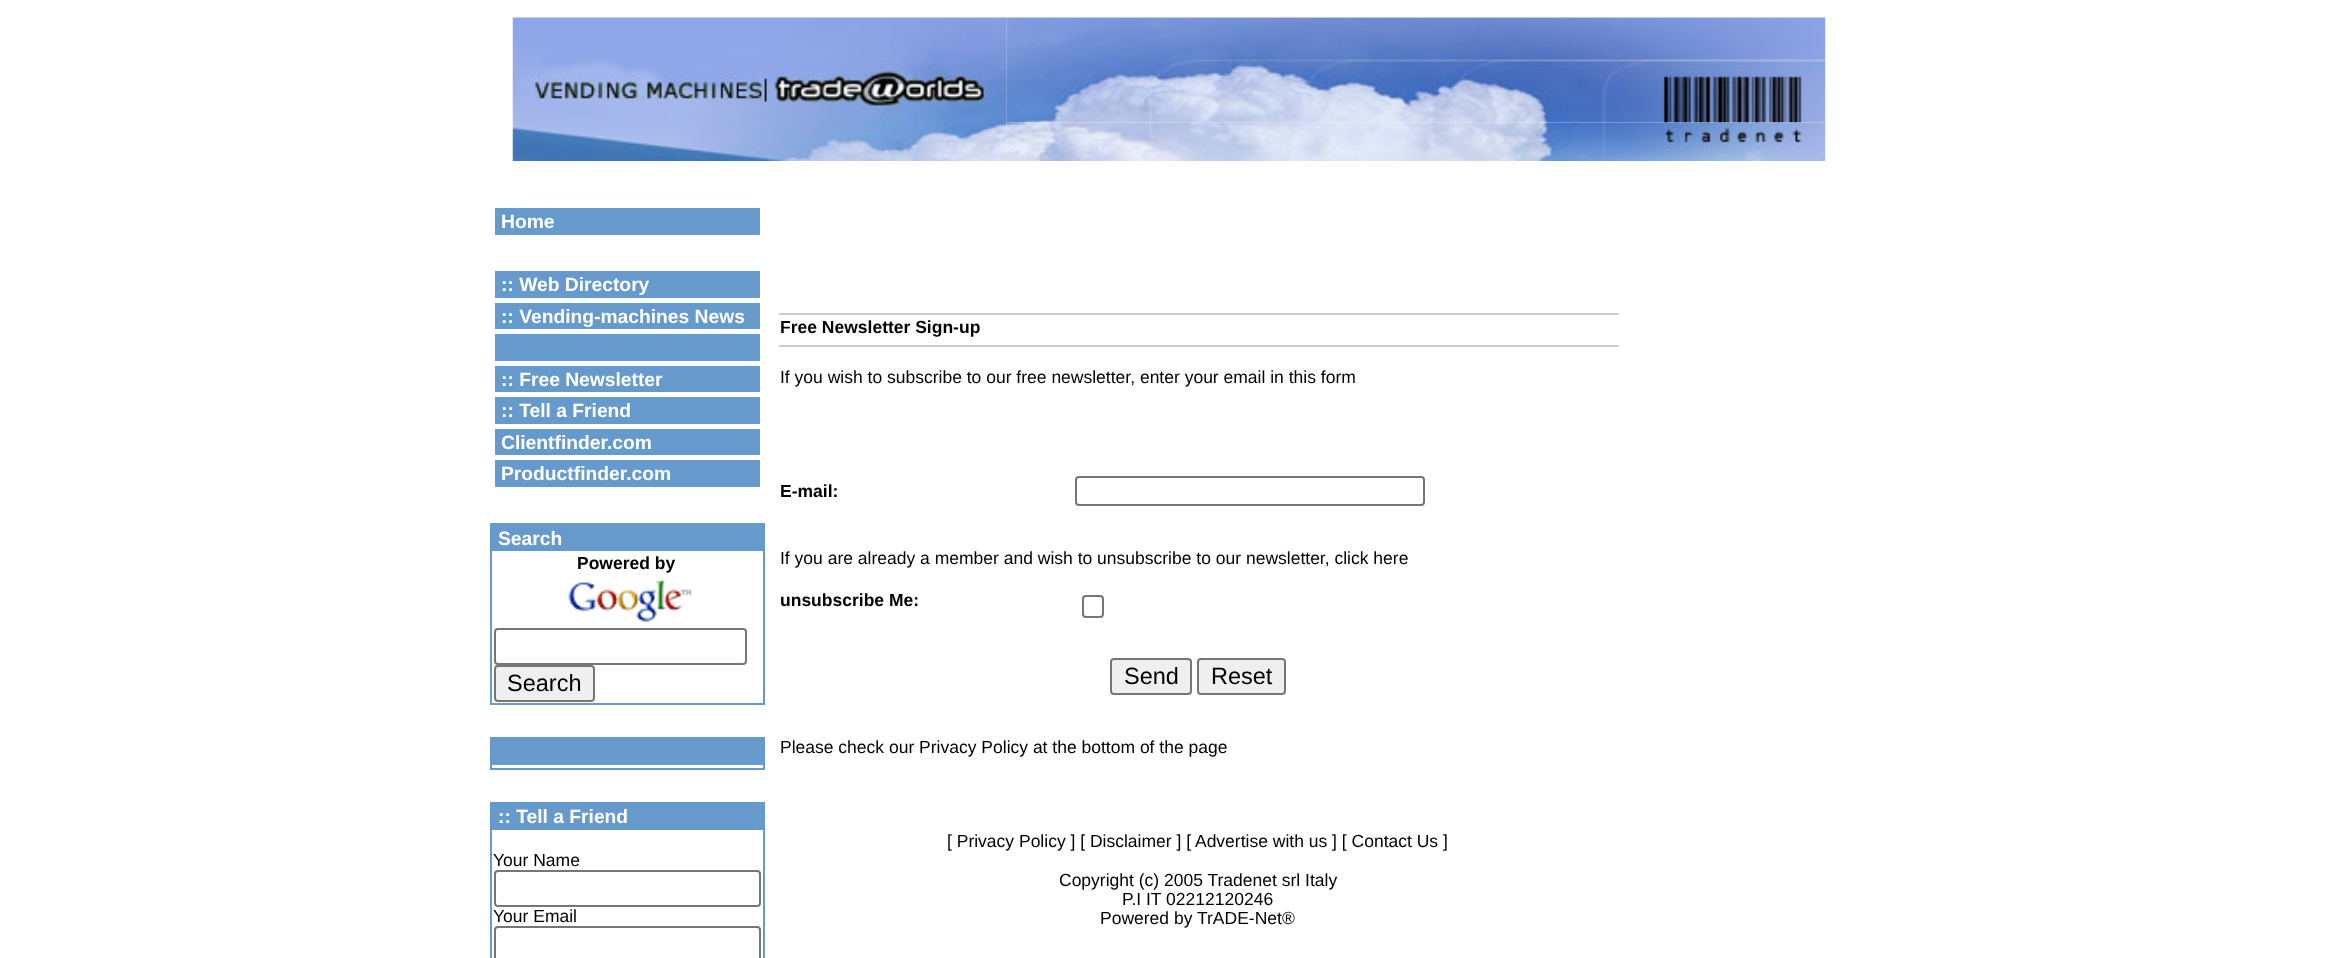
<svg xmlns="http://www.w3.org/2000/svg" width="2338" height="958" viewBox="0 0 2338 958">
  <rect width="100%" height="100%" fill="#fff"/>
  <image x="512" y="17" width="495" height="144" href="img/1.png"/>
  <image x="1006" y="17" width="820" height="106" href="img/2.png"/>
  <image x="1006" y="122" width="820" height="39" href="img/3.png"/>
  <path d="M495 208h265v27H495z" fill="#69c"/>
  <path d="M495 271h265v27H495z" fill="#69c"/>
  <path d="M495 303h265v26H495z" fill="#69c"/>
  <path d="M495 334h265v27H495z" fill="#69c"/>
  <path d="M495 366h265v26H495z" fill="#69c"/>
  <path d="M495 397h265v27H495z" fill="#69c"/>
  <path d="M495 429h265v26H495z" fill="#69c"/>
  <path d="M495 460h265v27H495z" fill="#69c"/>
  <path d="M491 524h273v180H491z" fill="none" stroke="#69c" stroke-width="2"/>
  <path d="M492 525h271v26H492z" fill="#69c"/>
  <image x="568" y="580" width="124" height="42" href="img/4.png"/>
  <rect x="495" y="629" width="251" height="35" rx="3" fill="none" stroke="#767676" stroke-width="2"/>
  <rect x="495" y="666" width="99" height="35" rx="3" fill="#efefef" stroke="#767676" stroke-width="2"/>
  <path d="M491 738h273v31H491z" fill="none" stroke="#69c" stroke-width="2"/>
  <path d="M492 739h271v26H492z" fill="#69c"/>
  <path d="M491 803h273v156H491z" fill="none" stroke="#69c" stroke-width="2"/>
  <path d="M492 804h271v26H492z" fill="#69c"/>
  <rect x="495" y="871" width="265" height="35" rx="3" fill="none" stroke="#767676" stroke-width="2"/>
  <rect x="495" y="927" width="265" height="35" rx="3" fill="none" stroke="#767676" stroke-width="2"/>
  <path d="M779 313h840v2H779z" fill="#ccc"/>
  <path d="M779 345h840v2H779z" fill="#ccc"/>
  <rect x="1076" y="477" width="348" height="28" rx="3" fill="none" stroke="#767676" stroke-width="2"/>
  <rect x="1083" y="596" width="20" height="21" rx="3" fill="none" stroke="#767676" stroke-width="2"/>
  <rect x="1111" y="659" width="80" height="35" rx="3" fill="#efefef" stroke="#767676" stroke-width="2"/>
  <rect x="1198" y="659" width="87" height="35" rx="3" fill="#efefef" stroke="#767676" stroke-width="2"/>
  <g font-family="Liberation Sans" font-size="19.25" font-weight="bold" fill="#fff">
    <text x="501" y="228">Home</text>
    <text x="501" y="291">:: Web Directory</text>
    <text x="501" y="323">:: Vending-machines News</text>
    <text x="501" y="386">:: Free Newsletter</text>
    <text x="501" y="417">:: Tell a Friend</text>
    <text x="501" y="449">Clientfinder.com</text>
    <text x="501" y="480">Productfinder.com</text>
    <text x="498" y="545">Search</text>
  </g>
  <text x="577" y="569" font-family="Liberation Sans" font-size="17.5" font-weight="bold" fill="#000">Powered by</text>
  <text x="507" y="691" font-family="Liberation Sans" font-size="23.5" fill="#000">Search</text>
  <text x="498" y="823" font-family="Liberation Sans" font-size="19.25" font-weight="bold" fill="#fff">:: Tell a Friend</text>
  <g font-family="Liberation Sans" font-size="17.5" fill="#000">
    <text x="493" y="866">Your Name</text>
    <text x="493" y="922">Your Email</text>
  </g>
  <text x="780" y="333" font-family="Liberation Sans" font-size="17.5" font-weight="bold" fill="#000">Free Newsletter Sign-up</text>
  <text x="780" y="383" font-family="Liberation Sans" font-size="17.5" fill="#000">If you wish to subscribe to our free newsletter, enter your email in this form</text>
  <text x="780" y="497" font-family="Liberation Sans" font-size="17.5" font-weight="bold" fill="#000">E-mail:</text>
  <text x="780" y="564" font-family="Liberation Sans" font-size="17.5" fill="#000">If you are already a member and wish to unsubscribe to our newsletter, click here</text>
  <text x="780" y="606" font-family="Liberation Sans" font-size="17.5" font-weight="bold" fill="#000">unsubscribe Me:</text>
  <g font-family="Liberation Sans" font-size="23.5" fill="#000">
    <text x="1124" y="684">Send</text>
    <text x="1211" y="684">Reset</text>
  </g>
  <g font-family="Liberation Sans" font-size="17.5" fill="#000">
    <text x="780" y="753">Please check our Privacy Policy at the bottom of the page</text>
    <text x="947" y="847">[ Privacy Policy ] [ Disclaimer ] [ Advertise with us ] [ Contact Us ]</text>
    <text x="1059" y="886">Copyright (c) 2005 Tradenet srl Italy</text>
    <text x="1122" y="905">P.I IT 02212120246</text>
    <text x="1100" y="924">Powered by</text>
    <text x="1197" y="924">TrADE-Net®</text>
  </g>
</svg>
